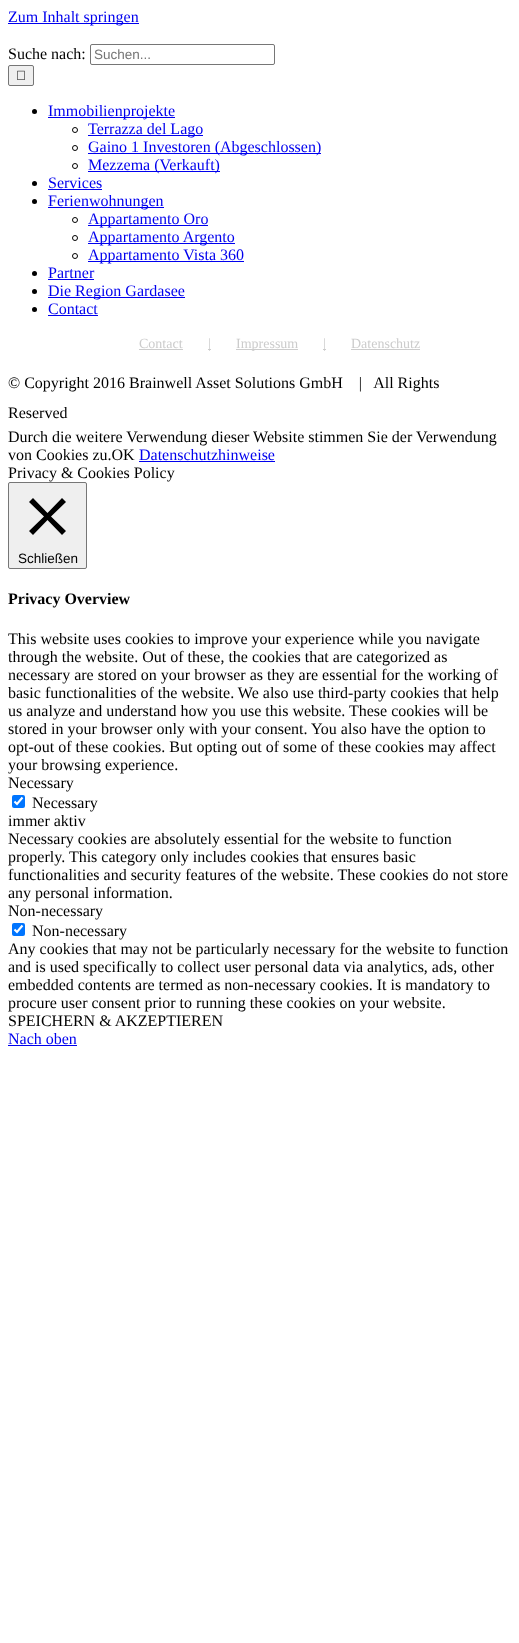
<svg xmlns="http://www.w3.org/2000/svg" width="519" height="1643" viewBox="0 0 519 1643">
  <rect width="100%" height="100%" fill="#fff"/>
  <path d="M8 23h131v1H8z" fill="#00e"/>
  <rect x="90.5" y="44.5" width="184" height="20" rx="1.5" fill="none" stroke="#767676"/>
  <rect x="8.5" y="65.5" width="25" height="20" rx="1.5" fill="#efefef" stroke="#767676"/>
  <image x="17" y="70" width="8" height="10" href="img/1.png"/>
  <circle cx="34.5" cy="111.5" r="2.5" fill="#000"/>
  <path d="M48 117h127v1H48z" fill="#00e"/>
  <circle cx="75" cy="130" r="2.5" fill="none" stroke="#000"/>
  <path d="M88 135h115v1H88z" fill="#00e"/>
  <circle cx="75" cy="148" r="2.5" fill="none" stroke="#000"/>
  <path d="M88 153h233v1H88z" fill="#00e"/>
  <circle cx="75" cy="166" r="2.5" fill="none" stroke="#000"/>
  <path d="M88 171h132v1H88z" fill="#00e"/>
  <circle cx="34.5" cy="183.5" r="2.5" fill="#000"/>
  <path d="M48 189h54v1H48z" fill="#00e"/>
  <circle cx="34.5" cy="201.5" r="2.5" fill="#000"/>
  <path d="M48 207h116v1H48z" fill="#00e"/>
  <circle cx="75" cy="220" r="2.5" fill="none" stroke="#000"/>
  <path d="M88 225h120v1H88z" fill="#00e"/>
  <circle cx="75" cy="238" r="2.5" fill="none" stroke="#000"/>
  <path d="M88 243h147v1H88z" fill="#00e"/>
  <circle cx="75" cy="256" r="2.5" fill="none" stroke="#000"/>
  <path d="M88 261h156v1H88z" fill="#00e"/>
  <circle cx="34.5" cy="273.5" r="2.5" fill="#000"/>
  <path d="M48 279h46v1H48z" fill="#00e"/>
  <circle cx="34.5" cy="291.5" r="2.5" fill="#000"/>
  <path d="M48 297h137v1H48z" fill="#00e"/>
  <circle cx="34.5" cy="309.5" r="2.5" fill="#000"/>
  <path d="M48 315h50v1H48z" fill="#00e"/>
  <path d="M139 349h44v1H139z" fill="#ccc"/>
  <path d="M208 349h3v1H208z" fill="#ccc"/>
  <path d="M236 349h62v1H236z" fill="#ccc"/>
  <path d="M323 349h3v1H323z" fill="#ccc"/>
  <path d="M351 349h69v1H351z" fill="#ccc"/>
  <path d="M139 461h136v1H139z" fill="#00e"/>
  <rect x="8.5" y="482.5" width="78" height="86" rx="1.5" fill="#efefef" stroke="#767676"/>
  <path d="M66 502L62 498L47.5 513L33 498L29 502L44 516.5L29 531L33 535L47.5 520L62 535L66 531L51 516.5Z" fill="#000"/>
  <rect x="12" y="795" width="13" height="13" rx="2" fill="#0075ff"/>
  <path d="M14.5 801.5L17 804L22.5 797.5" fill="none" stroke="#fff" stroke-width="2.1"/>
  <rect x="12" y="923" width="13" height="13" rx="2" fill="#0075ff"/>
  <path d="M14.5 929.5L17 932L22.5 925.5" fill="none" stroke="#fff" stroke-width="2.1"/>
  <path d="M8 1045h69v1H8z" fill="#00e"/>
  <text x="8" y="22" font-family="Liberation Serif" font-size="16" fill="#00e">Zum Inhalt springen</text>
  <text x="8" y="59" font-family="Liberation Serif" font-size="16" fill="#000">Suche nach:</text>
  <text x="94" y="59" font-family="Liberation Sans" font-size="13.5" fill="#757575">Suchen...</text>
  <g font-family="Liberation Serif" font-size="16" fill="#00e">
    <text x="48" y="116">Immobilienprojekte</text>
    <text x="88" y="134">Terrazza del Lago</text>
    <text x="88" y="152">Gaino 1 Investoren (Abgeschlossen)</text>
    <text x="88" y="170">Mezzema (Verkauft)</text>
    <text x="48" y="188">Services</text>
    <text x="48" y="206">Ferienwohnungen</text>
    <text x="88" y="224">Appartamento Oro</text>
    <text x="88" y="242">Appartamento Argento</text>
    <text x="88" y="260">Appartamento Vista 360</text>
    <text x="48" y="278">Partner</text>
    <text x="48" y="296">Die Region Gardasee</text>
    <text x="48" y="314">Contact</text>
  </g>
  <g font-family="Liberation Serif" font-size="14" fill="#ccc">
    <text x="139" y="348">Contact</text>
    <text x="208" y="348">|</text>
    <text x="236" y="348">Impressum</text>
    <text x="323" y="348">|</text>
    <text x="351" y="348">Datenschutz</text>
  </g>
  <g font-family="Liberation Serif" font-size="16" fill="#000">
    <text x="8" y="388" xml:space="preserve">© Copyright 2016 Brainwell Asset Solutions GmbH    |   All Rights</text>
    <text x="8" y="418">Reserved</text>
    <text x="8" y="442">Durch die weitere Verwendung dieser Website stimmen Sie der Verwendung</text>
    <text x="8" y="460">von Cookies zu.OK</text>
  </g>
  <text x="139" y="460" font-family="Liberation Serif" font-size="16" fill="#00e">Datenschutzhinweise</text>
  <text x="8" y="478" font-family="Liberation Serif" font-size="16" fill="#000">Privacy &amp; Cookies Policy</text>
  <text x="18" y="563" font-family="Liberation Sans" font-size="13.5" fill="#000">Schließen</text>
  <text x="8" y="604" font-family="Liberation Serif" font-size="16" font-weight="bold" fill="#000">Privacy Overview</text>
  <g font-family="Liberation Serif" font-size="16" fill="#000">
    <text x="8" y="644">This website uses cookies to improve your experience while you navigate</text>
    <text x="8" y="662">through the website. Out of these, the cookies that are categorized as</text>
    <text x="8" y="680">necessary are stored on your browser as they are essential for the working of</text>
    <text x="8" y="698">basic functionalities of the website. We also use third-party cookies that help</text>
    <text x="8" y="716">us analyze and understand how you use this website. These cookies will be</text>
    <text x="8" y="734">stored in your browser only with your consent. You also have the option to</text>
    <text x="8" y="752">opt-out of these cookies. But opting out of some of these cookies may affect</text>
    <text x="8" y="770">your browsing experience.</text>
    <text x="8" y="788">Necessary</text>
    <text x="32" y="808">Necessary</text>
    <text x="8" y="826">immer aktiv</text>
    <text x="8" y="844">Necessary cookies are absolutely essential for the website to function</text>
    <text x="8" y="862">properly. This category only includes cookies that ensures basic</text>
    <text x="8" y="880">functionalities and security features of the website. These cookies do not store</text>
    <text x="8" y="898">any personal information.</text>
    <text x="8" y="916">Non-necessary</text>
    <text x="32" y="936">Non-necessary</text>
    <text x="8" y="954">Any cookies that may not be particularly necessary for the website to function</text>
    <text x="8" y="972">and is used specifically to collect user personal data via analytics, ads, other</text>
    <text x="8" y="990">embedded contents are termed as non-necessary cookies. It is mandatory to</text>
    <text x="8" y="1008">procure user consent prior to running these cookies on your website.</text>
    <text x="8" y="1026">SPEICHERN &amp; AKZEPTIEREN</text>
  </g>
  <text x="8" y="1044" font-family="Liberation Serif" font-size="16" fill="#00e">Nach oben</text>
</svg>
